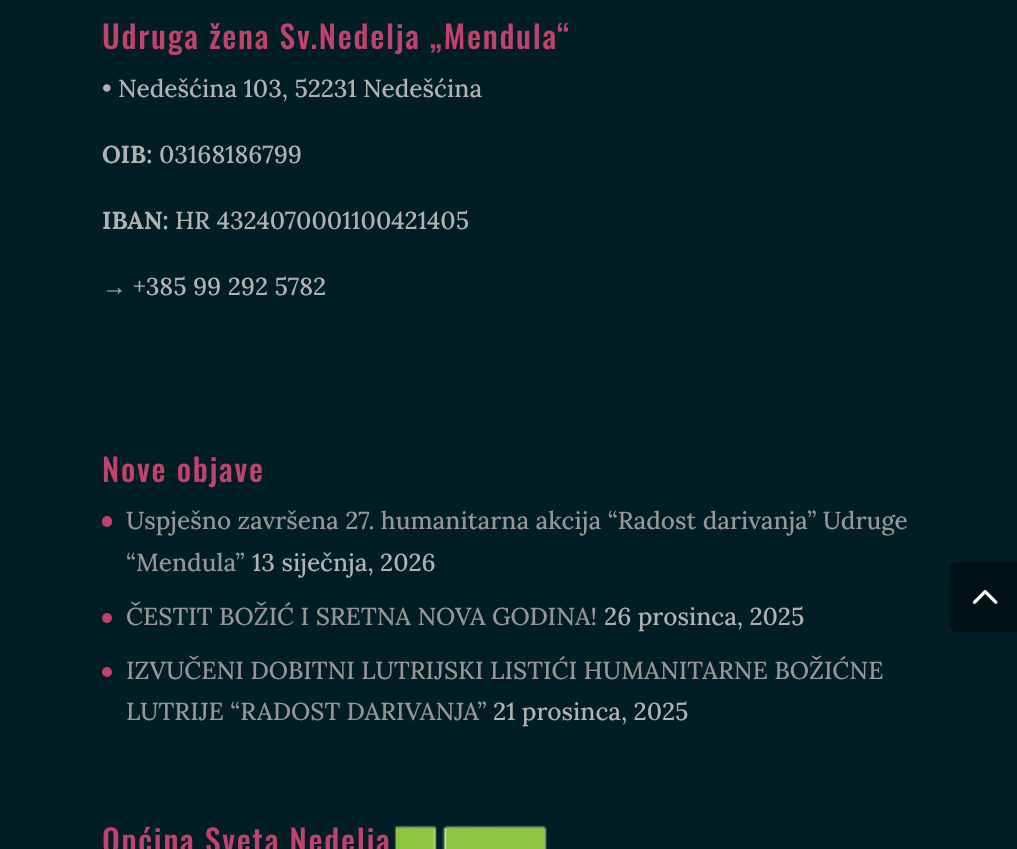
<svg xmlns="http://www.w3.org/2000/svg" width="1017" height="849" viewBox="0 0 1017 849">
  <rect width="100%" height="100%" fill="#001e23"/>
  <rect x="102" y="516" width="10" height="11" rx="5" fill="#c1436d"/>
  <circle cx="107" cy="618" r="5" fill="#c1436d"/>
  <circle cx="107" cy="672" r="5" fill="#c1436d"/>
  <image x="393" y="825" width="154" height="24" href="img/1.png"/>
  <path d="M958 562H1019V632H958C953 632 949 628 949 623V571C949 566 953 562 958 562Z" fill="#001215"/>
  <image x="972" y="590" width="26" height="14" href="img/2.png"/>
  <text x="102" y="49" font-family="Oswald" font-size="31.5" font-weight="500" letter-spacing="1.75" fill="#c1436d">Udruga žena Sv.Nedelja „Mendula“</text>
  <text x="102" y="97" font-family="Lora" font-size="24.5" font-weight="500" fill="#b2b2b2">• Nedešćina 103, 52231 Nedešćina</text>
  <text x="102" y="163" font-family="Lora" font-size="24.5" font-weight="bold" fill="#b2b2b2">OIB:</text>
  <text x="159" y="163" font-family="Lora" font-size="24.5" font-weight="500" fill="#b2b2b2">03168186799</text>
  <text x="102" y="229" font-family="Lora" font-size="24.5" font-weight="bold" fill="#b2b2b2">IBAN:</text>
  <text x="175" y="229" font-family="Lora" font-size="24.5" font-weight="500" fill="#b2b2b2">HR 4324070001100421405</text>
  <text x="102" y="295" font-family="Liberation Serif" font-size="24.5" fill="#b2b2b2">→</text>
  <text x="133" y="295" font-family="Lora" font-size="24.5" font-weight="500" fill="#b2b2b2">+385 99 292 5782</text>
  <text x="102" y="482" font-family="Oswald" font-size="31.5" font-weight="500" letter-spacing="1.75" fill="#c1436d">Nove objave</text>
  <g font-family="Lora" font-size="24.5" font-weight="500" fill="#969696">
    <text x="126" y="529">Uspješno završena 27. humanitarna akcija “Radost darivanja” Udruge</text>
    <text x="126" y="571">“Mendula”</text>
  </g>
  <text x="252" y="571" font-family="Lora" font-size="24.5" font-weight="500" fill="#b2b2b2">13 siječnja, 2026</text>
  <text x="126" y="625" font-family="Lora" font-size="24.5" font-weight="500" fill="#969696">ČESTIT BOŽIĆ I SRETNA NOVA GODINA!</text>
  <text x="604" y="625" font-family="Lora" font-size="24.5" font-weight="500" fill="#b2b2b2">26 prosinca, 2025</text>
  <g font-family="Lora" font-size="24.5" font-weight="500" fill="#969696">
    <text x="126" y="679">IZVUČENI DOBITNI LUTRIJSKI LISTIĆI HUMANITARNE BOŽIĆNE</text>
    <text x="126" y="720">LUTRIJE “RADOST DARIVANJA”</text>
  </g>
  <text x="493" y="720" font-family="Lora" font-size="24.5" font-weight="500" fill="#b2b2b2">21 prosinca, 2025</text>
  <text x="102" y="853" font-family="Oswald" font-size="31.5" font-weight="500" letter-spacing="1.75" fill="#c1436d">Općina Sveta Nedelja</text>
</svg>
